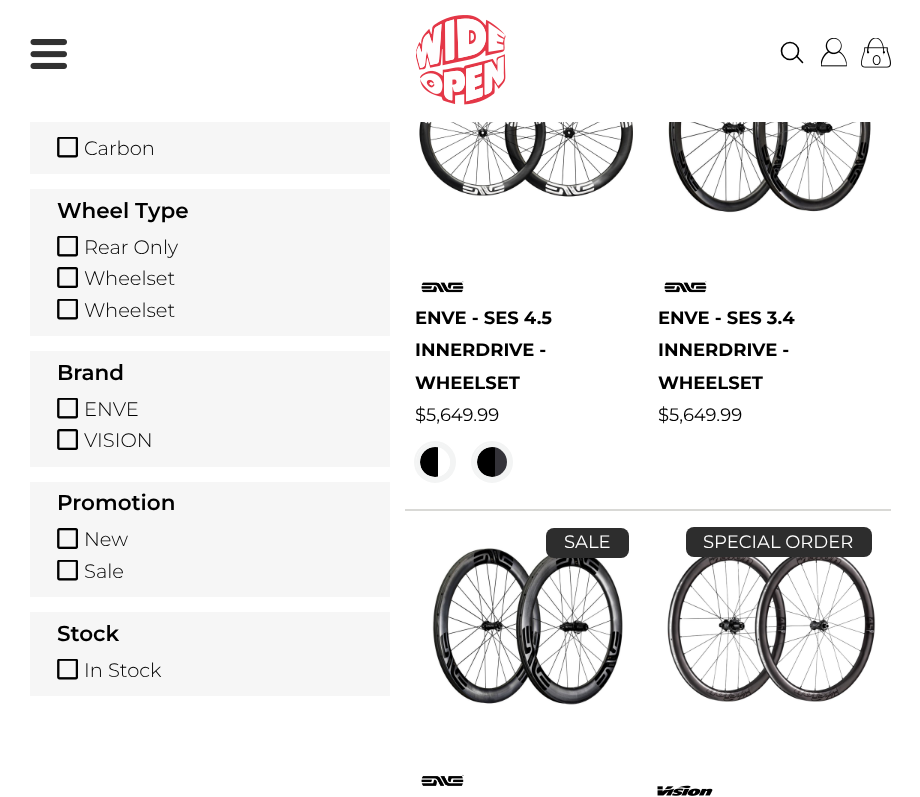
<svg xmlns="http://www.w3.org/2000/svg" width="920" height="797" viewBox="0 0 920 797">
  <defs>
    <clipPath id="clip1"><rect x="420" y="447" width="30" height="30" rx="15"/></clipPath>
    <clipPath id="clip2"><rect x="477" y="447" width="30" height="30" rx="15"/></clipPath>
  </defs>
  <rect width="100%" height="100%" fill="#fff"/>
  <image x="30" y="39" width="37" height="30" href="img/1.png"/>
  <image x="416" y="15" width="90" height="90" href="img/2.png"/>
  <circle cx="790" cy="51" r="8.5" fill="none" stroke="#000" stroke-width="1.6"/>
  <path d="M796.5 56L802.5 62.5" fill="none" stroke="#000" stroke-width="1.6" stroke-linecap="round" stroke-linejoin="round"/>
  <image x="821" y="38" width="26" height="29" href="img/3.png"/>
  <image x="861" y="38" width="30" height="30" href="img/4.png"/>
  <path d="M30 122h360v52H30z" fill="#f6f6f6"/>
  <image x="57" y="137" width="21" height="21" href="img/5.png"/>
  <path d="M30 189h360v147H30z" fill="#f6f6f6"/>
  <image x="57" y="236" width="21" height="21" href="img/5.png"/>
  <image x="57" y="267" width="21" height="21" href="img/6.png"/>
  <image x="57" y="299" width="21" height="21" href="img/5.png"/>
  <path d="M30 351h360v116H30z" fill="#f6f6f6"/>
  <image x="57" y="398" width="21" height="21" href="img/5.png"/>
  <image x="57" y="429" width="21" height="21" href="img/6.png"/>
  <path d="M30 482h360v115H30z" fill="#f6f6f6"/>
  <image x="57" y="528" width="21" height="21" href="img/6.png"/>
  <image x="57" y="560" width="21" height="21" href="img/5.png"/>
  <path d="M30 612h360v84H30z" fill="#f6f6f6"/>
  <image x="57" y="659" width="21" height="21" href="img/5.png"/>
  <image x="419" y="122" width="214" height="75" href="img/7.png"/>
  <image x="421" y="281" width="43" height="12" href="img/8.png"/>
  <circle cx="435" cy="462" r="20" fill="none" stroke="#f3f4f4" stroke-width="2"/>
  <circle cx="435.5" cy="462.5" r="17" fill="none" stroke="#f3f4f4" stroke-width="5"/>
  <g clip-path="url(#clip1)">
    <path d="M435 447H438V477H435C426.5 477 420 470.5 420 462C420 453.5 426.5 447 435 447Z" fill="#000"/>
    <path d="M438 447h12v30H438z" fill="#fff"/>
  </g>
  <circle cx="492" cy="462" r="20" fill="none" stroke="#f3f4f4" stroke-width="2"/>
  <circle cx="492.5" cy="462.5" r="17" fill="none" stroke="#f3f4f4" stroke-width="5"/>
  <g clip-path="url(#clip2)">
    <path d="M492 447H495V477H492C483.5 477 477 470.5 477 462C477 453.5 483.5 447 492 447Z" fill="#000"/>
    <path d="M495 447h12v30H495z" fill="#343339"/>
  </g>
  <image x="668" y="122" width="203" height="91" href="img/9.png"/>
  <image x="664" y="281" width="43" height="12" href="img/8.png"/>
  <path d="M405 509h486v2H405z" fill="#d9d9d6"/>
  <image x="432" y="548" width="191" height="157" href="img/10.png"/>
  <rect x="546" y="528" width="83" height="30" rx="8" fill="#2d2d2d"/>
  <image x="421" y="774" width="43" height="12" href="img/11.png"/>
  <image x="667" y="549" width="209" height="153" href="img/12.png"/>
  <rect x="686" y="527" width="186" height="30" rx="8" fill="#2d2d2d"/>
  <image x="657" y="785" width="56" height="11" href="img/13.png"/>
  <text x="872" y="65" font-family="Montserrat" font-size="14" fill="#000">0</text>
  <text x="84" y="155" font-family="Montserrat" font-size="19.5" font-weight="300" fill="#000">Carbon</text>
  <text x="57" y="218" font-family="Montserrat" font-size="21.5" font-weight="600" fill="#000">Wheel Type</text>
  <g font-family="Montserrat" font-size="19.5" font-weight="300" fill="#000">
    <text x="84" y="254">Rear Only</text>
    <text x="84" y="285">Wheelset</text>
    <text x="84" y="317">Wheelset</text>
  </g>
  <text x="57" y="380" font-family="Montserrat" font-size="21.5" font-weight="600" fill="#000">Brand</text>
  <g font-family="Montserrat" font-size="19.5" font-weight="300" fill="#000">
    <text x="84" y="416">ENVE</text>
    <text x="84" y="447">VISION</text>
  </g>
  <text x="57" y="510" font-family="Montserrat" font-size="21.5" font-weight="600" fill="#000">Promotion</text>
  <g font-family="Montserrat" font-size="19.5" font-weight="300" fill="#000">
    <text x="84" y="546">New</text>
    <text x="84" y="578">Sale</text>
  </g>
  <text x="57" y="641" font-family="Montserrat" font-size="21.5" font-weight="600" fill="#000">Stock</text>
  <text x="84" y="677" font-family="Montserrat" font-size="19.5" font-weight="300" fill="#000">In Stock</text>
  <g font-family="Montserrat" font-size="18" font-weight="bold" fill="#000">
    <text x="415" y="324">ENVE - SES 4.5</text>
    <text x="415" y="356">INNERDRIVE -</text>
    <text x="415" y="389">WHEELSET</text>
  </g>
  <text x="415" y="421" font-family="Montserrat" font-size="18" fill="#000">$5,649.99</text>
  <g font-family="Montserrat" font-size="18" font-weight="bold" fill="#000">
    <text x="658" y="324">ENVE - SES 3.4</text>
    <text x="658" y="356">INNERDRIVE -</text>
    <text x="658" y="389">WHEELSET</text>
  </g>
  <text x="658" y="421" font-family="Montserrat" font-size="18" fill="#000">$5,649.99</text>
  <g font-family="Montserrat" font-size="18" fill="#fff">
    <text x="564" y="548">SALE</text>
    <text x="703" y="548">SPECIAL ORDER</text>
  </g>
</svg>
